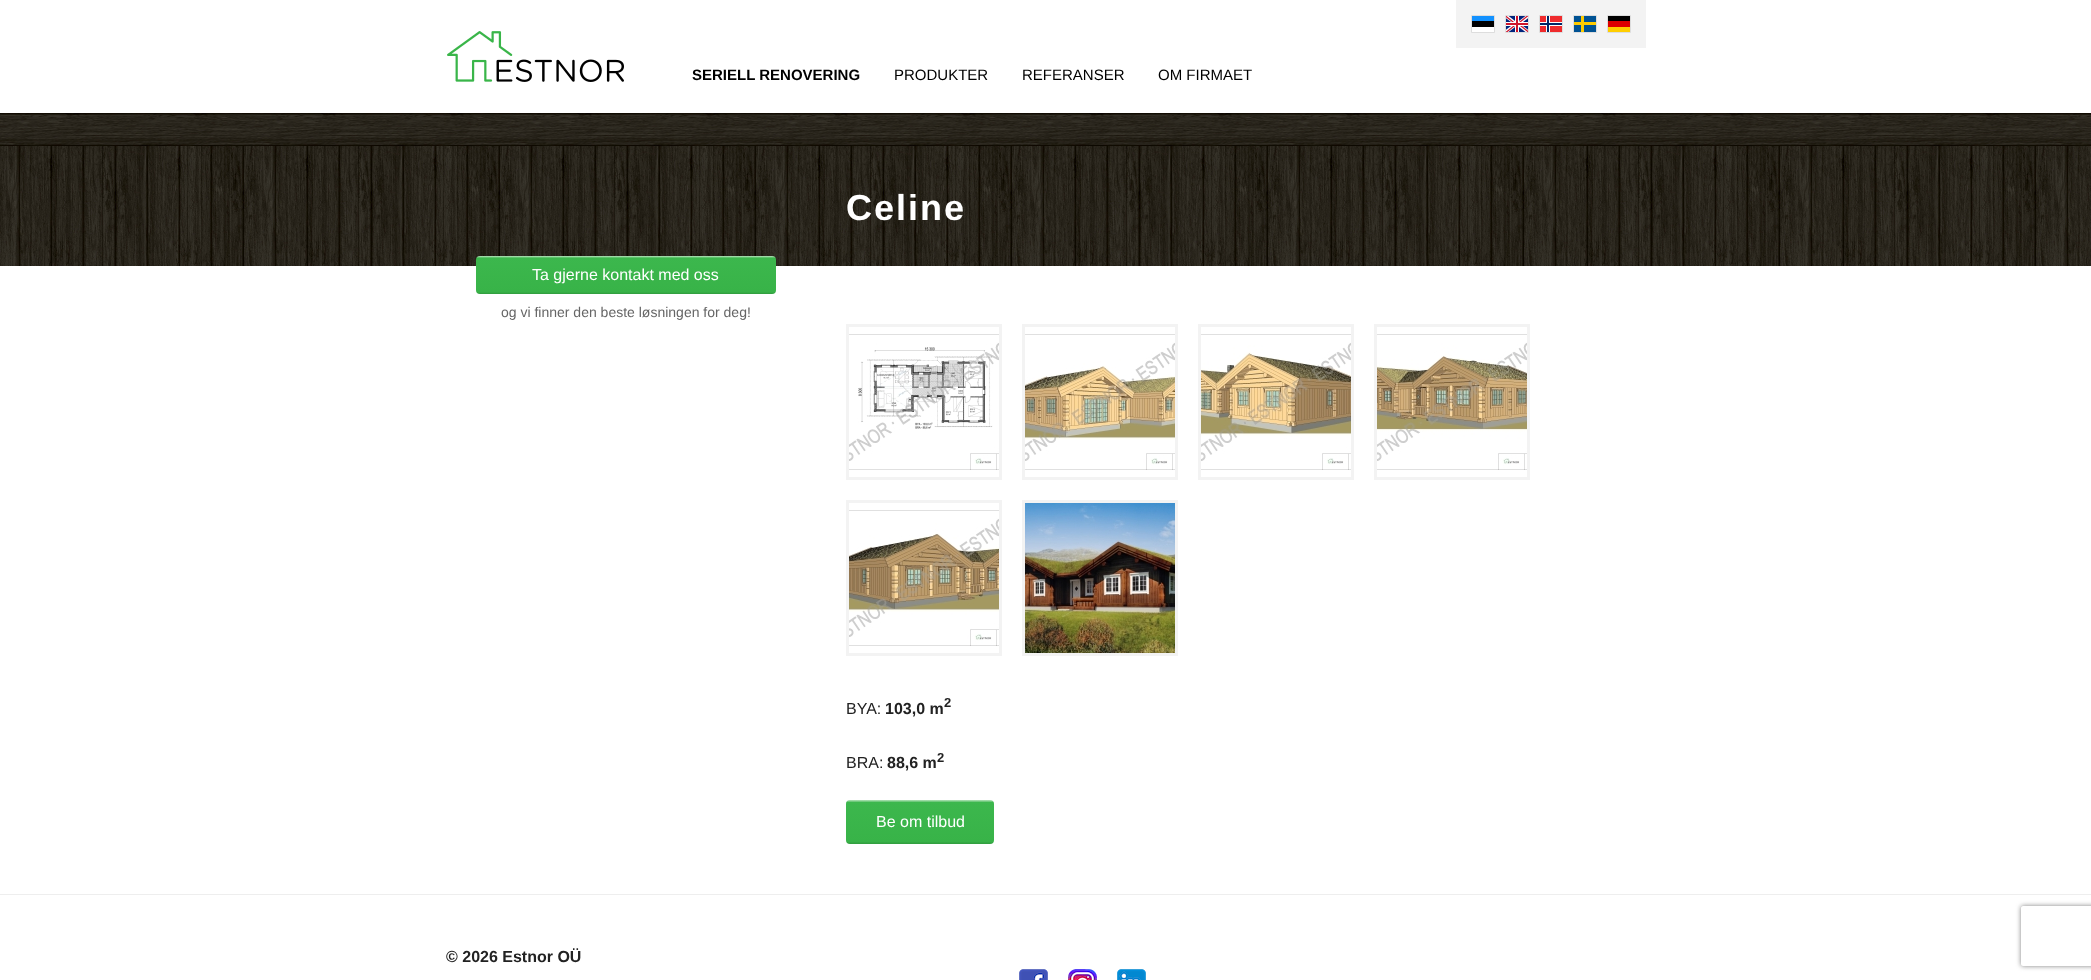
<svg xmlns="http://www.w3.org/2000/svg" width="2091" height="980" viewBox="0 0 2091 980">
  <defs>
    <linearGradient id="g1" gradientUnits="userSpaceOnUse" x1="626" y1="256" x2="626" y2="294"><stop offset="0" stop-color="#9bdaa3"/><stop offset="0.02" stop-color="#9fdba7"/><stop offset="0.05" stop-color="#3cb74d"/><stop offset="0.95" stop-color="#38b348"/><stop offset="0.98" stop-color="#32a041"/><stop offset="1" stop-color="#31a13f"/></linearGradient>
    <linearGradient id="g2" gradientUnits="userSpaceOnUse" x1="920" y1="800" x2="920" y2="844"><stop offset="0" stop-color="#9bdaa3"/><stop offset="0.02" stop-color="#9fdba7"/><stop offset="0.05" stop-color="#3cb74d"/><stop offset="0.95" stop-color="#38b348"/><stop offset="0.98" stop-color="#32a041"/><stop offset="1" stop-color="#31a13f"/></linearGradient>
    <clipPath id="clip1"><path d="M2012 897H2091V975H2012ZM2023 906H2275C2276 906 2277 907 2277 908V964C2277 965 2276 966 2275 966H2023C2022 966 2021 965 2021 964V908C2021 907 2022 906 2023 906Z" clip-rule="evenodd"/></clipPath>
    <clipPath id="clip2"><path d="M446 945h720v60H446z"/></clipPath>
  </defs>
  <rect width="100%" height="100%" fill="#fff"/>
  <path d="M1456 0h190v48H1456z" fill="#f3f3f3"/>
  <path d="M1471.5 15.5h23v17H1471.5z" fill="none" stroke="#ddd"/>
  <path d="M1472 16h22v5H1472z" fill="#1291ff"/>
  <path d="M1472 21h22v6H1472z" fill="#000"/>
  <path d="M1472 27h22v5H1472z" fill="#fff"/>
  <path d="M1505.5 15.5h23v17H1505.5z" fill="none" stroke="#ddd"/>
  <image x="1506" y="16" width="22" height="16" href="img/1.png"/>
  <path d="M1539.5 15.5h23v17H1539.5z" fill="none" stroke="#ddd"/>
  <image x="1540" y="16" width="22" height="16" href="img/2.png"/>
  <path d="M1573.5 15.5h23v17H1573.5z" fill="none" stroke="#ddd"/>
  <path d="M1574 16h22v16H1574z" fill="#005293"/>
  <path d="M1581 16h3v16H1581z" fill="#fecb00"/>
  <path d="M1574 22h22v3H1574z" fill="#fecb00"/>
  <path d="M1607.5 15.5h23v17H1607.5z" fill="none" stroke="#ddd"/>
  <path d="M1608 16h22v5H1608z" fill="#000"/>
  <path d="M1608 27h22v5H1608z" fill="#ffce00"/>
  <path d="M1608 21h22v6H1608z" fill="#d00"/>
  <image x="447" y="31" width="177" height="51" href="img/3.png"/>
  <image x="0" y="146" width="2091" height="120" href="img/4.png"/>
  <image x="0" y="113" width="2091" height="33" href="img/5.png"/>
  <rect x="476" y="256" width="300" height="38" rx="4" fill="url(#g1)"/>
  <path d="M847.5 325.5h153v153H847.5z" fill="none" stroke="#f3f3f3" stroke-width="3"/>
  <image x="849" y="334" width="150" height="136" href="img/6.png"/>
  <path d="M1023.5 325.5h153v153H1023.5z" fill="none" stroke="#f3f3f3" stroke-width="3"/>
  <image x="1025" y="334" width="150" height="136" href="img/7.png"/>
  <path d="M1199.5 325.5h153v153H1199.5z" fill="none" stroke="#f3f3f3" stroke-width="3"/>
  <image x="1201" y="334" width="150" height="136" href="img/8.png"/>
  <path d="M1375.5 325.5h153v153H1375.5z" fill="none" stroke="#f3f3f3" stroke-width="3"/>
  <image x="1377" y="334" width="150" height="136" href="img/9.png"/>
  <path d="M847.5 501.5h153v153H847.5z" fill="none" stroke="#f3f3f3" stroke-width="3"/>
  <image x="849" y="510" width="150" height="136" href="img/10.png"/>
  <path d="M1023.5 501.5h153v153H1023.5z" fill="none" stroke="#f3f3f3" stroke-width="3"/>
  <image x="1025" y="503" width="150" height="150" href="img/11.png"/>
  <rect x="846" y="800" width="148" height="44" rx="4" fill="url(#g2)"/>
  <path d="M0 894h2091v1H0z" fill="#eee"/>
  <image x="1019" y="969" width="29" height="11" href="img/12.png"/>
  <image x="1068" y="969" width="29" height="11" href="img/13.png"/>
  <image x="1117" y="969" width="29" height="11" href="img/14.png"/>
  <g clip-path="url(#clip1)">
    <rect x="2021" y="906" width="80" height="60" rx="2" fill="#808080" filter="blur(2.5px)"/>
  </g>
  <text x="692" y="80" font-family="Liberation Sans" font-size="15" font-weight="bold" fill="#000">SERIELL RENOVERING</text>
  <g font-family="Liberation Sans" font-size="15" fill="#000">
    <text x="894" y="80">PRODUKTER</text>
    <text x="1022" y="80">REFERANSER</text>
    <text x="1158" y="80">OM FIRMAET</text>
  </g>
  <text x="532" y="280" font-family="Liberation Sans" font-size="16" fill="#fff">Ta gjerne kontakt med oss</text>
  <text x="501" y="317" font-family="Liberation Sans" font-size="14" fill="#666">og vi finner den beste løsningen for deg!</text>
  <text x="846" y="220" font-family="Liberation Sans" font-size="36" font-weight="bold" letter-spacing="2" fill="#fff">Celine</text>
  <text x="846" y="714" font-family="Liberation Sans" font-size="16" fill="#222">BYA:</text>
  <text x="885" y="714" font-family="Liberation Sans" font-size="16" font-weight="bold" fill="#222">103,0 m</text>
  <text x="944" y="707" font-family="Liberation Sans" font-size="13" font-weight="bold" fill="#222">2</text>
  <text x="846" y="768" font-family="Liberation Sans" font-size="16" fill="#222">BRA:</text>
  <text x="887" y="768" font-family="Liberation Sans" font-size="16" font-weight="bold" fill="#222">88,6 m</text>
  <text x="937" y="762" font-family="Liberation Sans" font-size="13" font-weight="bold" fill="#222">2</text>
  <text x="876" y="827" font-family="Liberation Sans" font-size="16" fill="#fff">Be om tilbud</text>
  <g clip-path="url(#clip2)">
    <text x="446" y="962" font-family="Liberation Sans" font-size="16" font-weight="bold" fill="#222">© 2026 Estnor OÜ</text>
  </g>
</svg>
